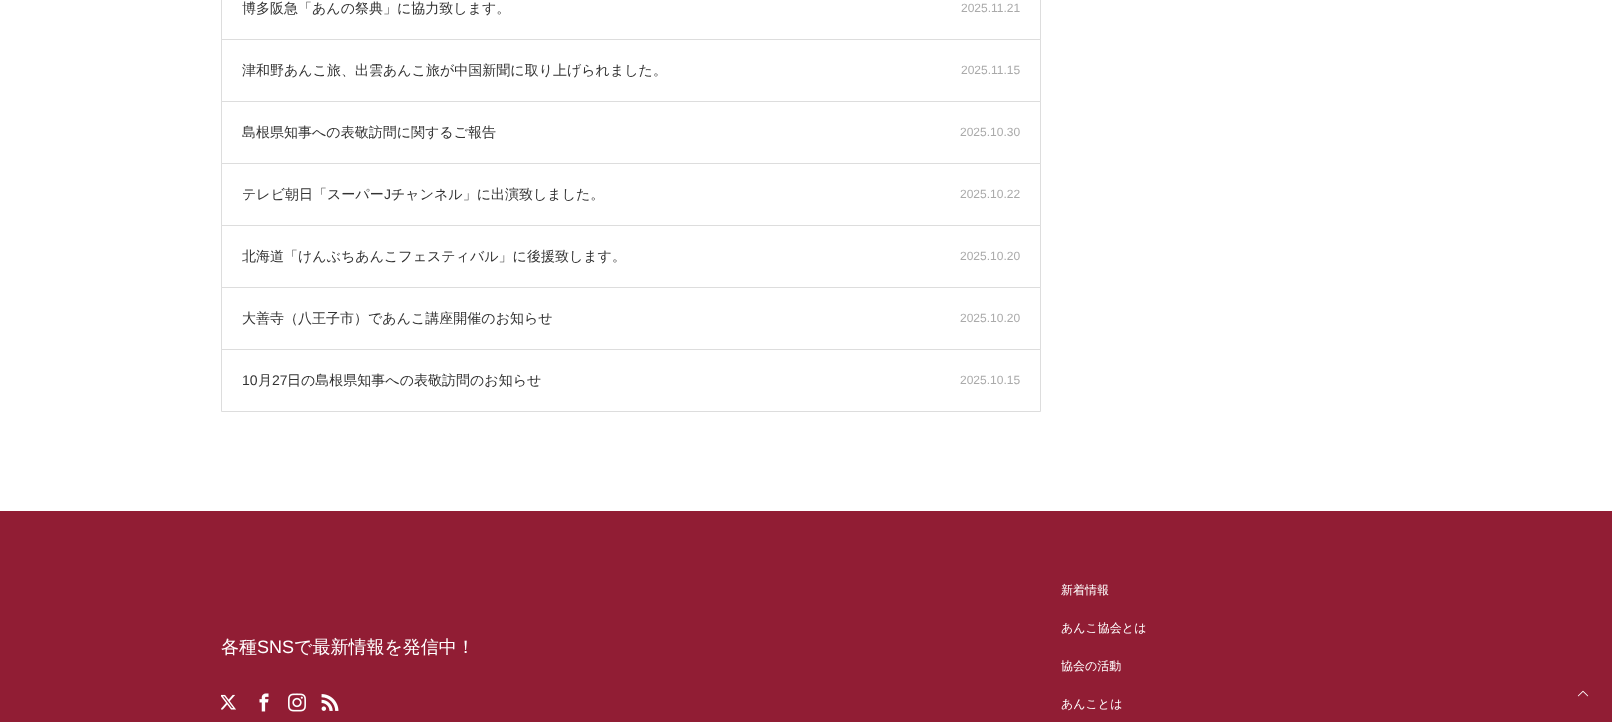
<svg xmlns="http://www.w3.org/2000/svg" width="1612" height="722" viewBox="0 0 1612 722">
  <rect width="100%" height="100%" fill="#fff"/>
  <path d="M221.5 -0.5h819v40H221.5z" fill="none" stroke="#ddd"/>
  <path d="M221.5 39.5h819v62H221.5z" fill="none" stroke="#ddd"/>
  <path d="M221.5 101.5h819v62H221.5z" fill="none" stroke="#ddd"/>
  <path d="M221.5 163.5h819v62H221.5z" fill="none" stroke="#ddd"/>
  <path d="M221.5 225.5h819v62H221.5z" fill="none" stroke="#ddd"/>
  <path d="M221.5 287.5h819v62H221.5z" fill="none" stroke="#ddd"/>
  <path d="M221.5 349.5h819v62H221.5z" fill="none" stroke="#ddd"/>
  <path d="M0 511h1612v211H0z" fill="#911d34"/>
  <image x="221" y="694" width="15" height="16" href="img/1.png"/>
  <image x="259" y="693" width="10" height="19" href="img/2.png"/>
  <image x="288" y="693" width="18" height="19" href="img/3.png"/>
  <image x="321" y="694" width="18" height="17" href="img/4.png"/>
  <image x="1577" y="690" width="12" height="7" href="img/5.png"/>
  <text x="242" y="13" font-family="WenQuanYi Zen Hei" font-size="14" font-weight="500" fill="#333">博多阪急「あんの祭典」に協力致します。</text>
  <text x="961" y="12" font-family="Liberation Sans" font-size="12" fill="#aaa">2025.11.21</text>
  <text x="242" y="75" font-family="WenQuanYi Zen Hei" font-size="14" font-weight="500" fill="#333">津和野あんこ旅、出雲あんこ旅が中国新聞に取り上げられました。</text>
  <text x="961" y="74" font-family="Liberation Sans" font-size="12" fill="#aaa">2025.11.15</text>
  <text x="242" y="137" font-family="WenQuanYi Zen Hei" font-size="14" font-weight="500" fill="#333">島根県知事への表敬訪問に関するご報告</text>
  <text x="960" y="136" font-family="Liberation Sans" font-size="12" fill="#aaa">2025.10.30</text>
  <text x="242" y="199" font-family="WenQuanYi Zen Hei" font-size="14" font-weight="500" fill="#333">テレビ朝日「スーパー</text>
  <text x="384" y="199" font-family="Liberation Sans" font-size="14" fill="#333">J</text>
  <text x="391" y="199" font-family="WenQuanYi Zen Hei" font-size="14" font-weight="500" fill="#333">チャンネル」に出演致しました。</text>
  <text x="960" y="198" font-family="Liberation Sans" font-size="12" fill="#aaa">2025.10.22</text>
  <text x="242" y="261" font-family="WenQuanYi Zen Hei" font-size="14" font-weight="500" fill="#333">北海道「けんぶちあんこフェスティバル」に後援致します。</text>
  <text x="960" y="260" font-family="Liberation Sans" font-size="12" fill="#aaa">2025.10.20</text>
  <text x="242" y="323" font-family="WenQuanYi Zen Hei" font-size="14" font-weight="500" fill="#333">大善寺（八王子市）であんこ講座開催のお知らせ</text>
  <text x="960" y="322" font-family="Liberation Sans" font-size="12" fill="#aaa">2025.10.20</text>
  <text x="242" y="385" font-family="Liberation Sans" font-size="14" fill="#333">10</text>
  <text x="258" y="385" font-family="WenQuanYi Zen Hei" font-size="14" font-weight="500" fill="#333">月</text>
  <text x="272" y="385" font-family="Liberation Sans" font-size="14" fill="#333">27</text>
  <text x="287" y="385" font-family="WenQuanYi Zen Hei" font-size="14" font-weight="500" fill="#333">日の島根県知事への表敬訪問のお知らせ</text>
  <text x="960" y="384" font-family="Liberation Sans" font-size="12" fill="#aaa">2025.10.15</text>
  <text x="221" y="653" font-family="WenQuanYi Zen Hei" font-size="18" font-weight="500" fill="#fff">各種</text>
  <text x="257" y="653" font-family="Liberation Sans" font-size="18" fill="#fff">SNS</text>
  <text x="294" y="653" font-family="WenQuanYi Zen Hei" font-size="18" font-weight="500" fill="#fff">で最新情報を発信中！</text>
  <g font-family="WenQuanYi Zen Hei" font-size="12" font-weight="500" fill="#fff">
    <text x="1061" y="594">新着情報</text>
    <text x="1061" y="632">あんこ協会とは</text>
    <text x="1061" y="670">協会の活動</text>
    <text x="1061" y="708">あんことは</text>
  </g>
</svg>
